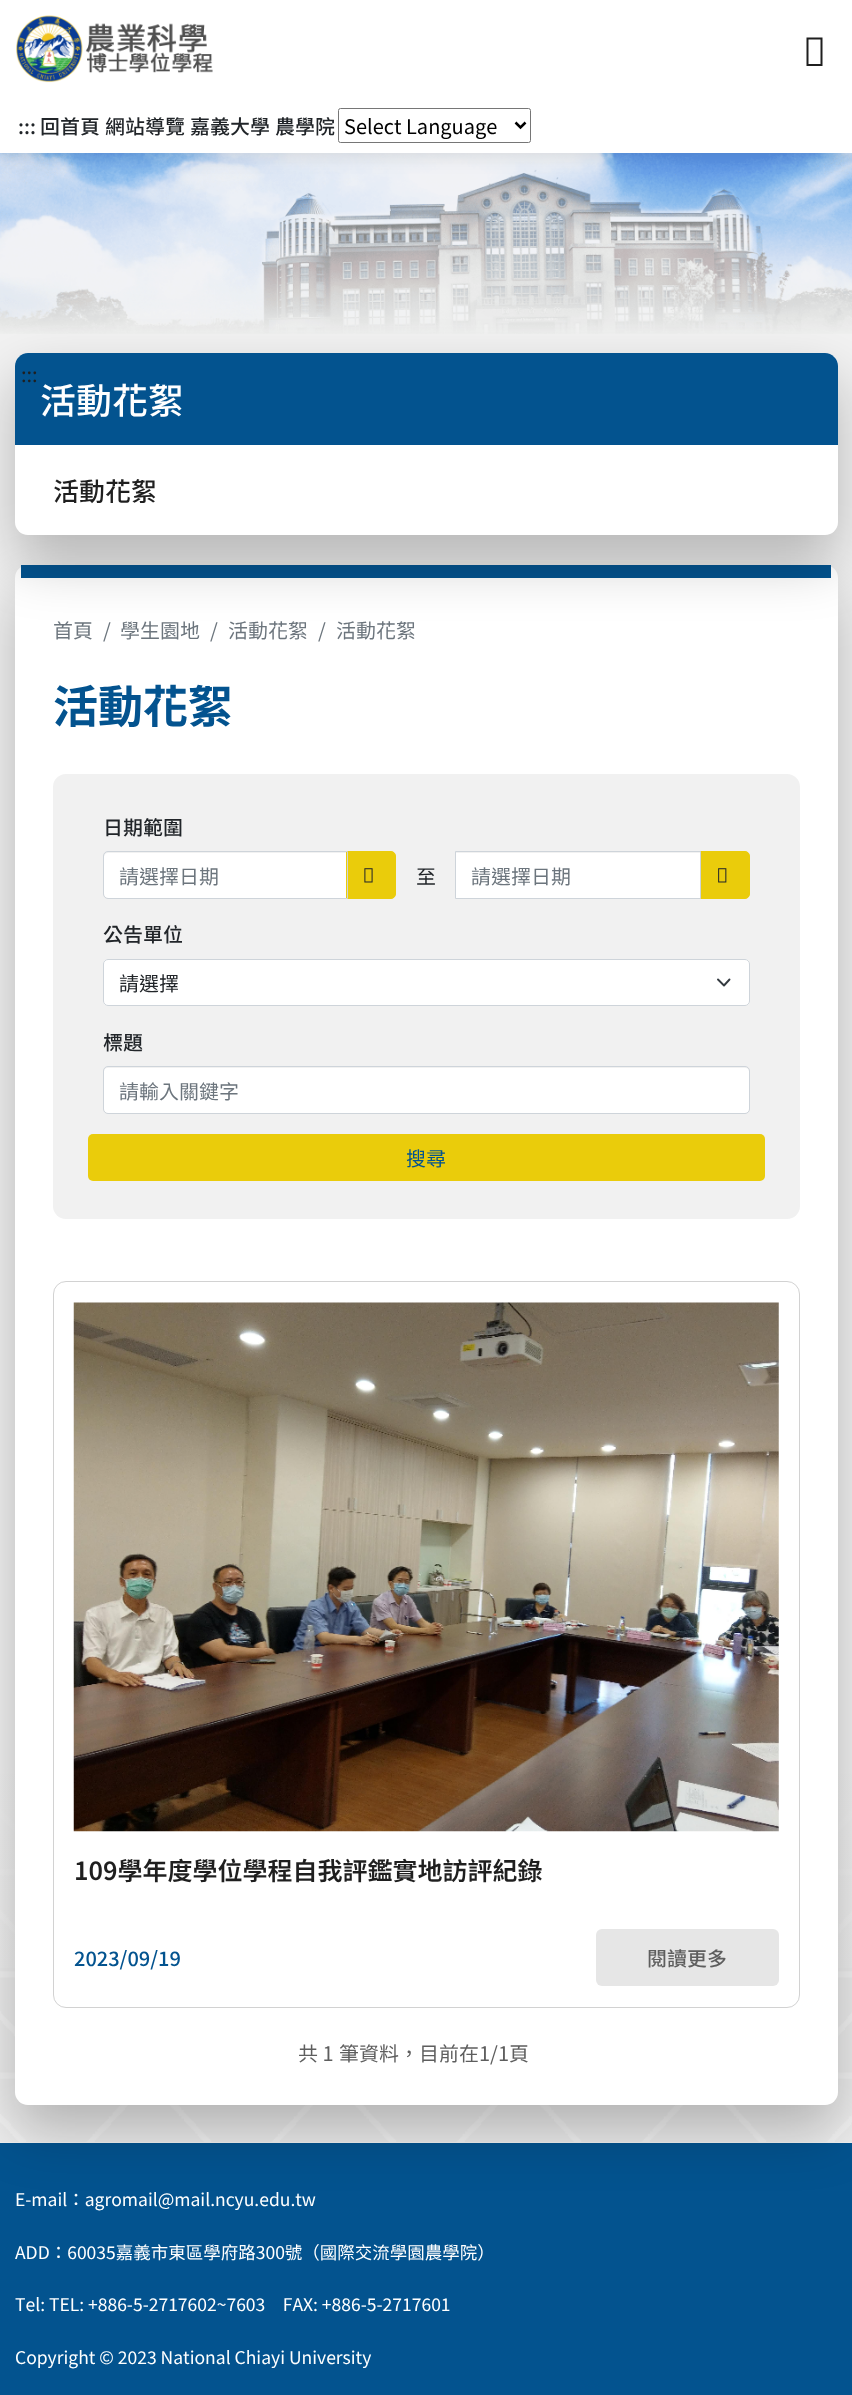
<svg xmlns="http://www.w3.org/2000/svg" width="852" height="2395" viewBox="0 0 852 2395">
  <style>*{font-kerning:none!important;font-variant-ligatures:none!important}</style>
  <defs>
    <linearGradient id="g1" gradientUnits="userSpaceOnUse" x1="426" y1="1148" x2="426" y2="2143"><stop offset="0.6" stop-color="#f2f2f2"/><stop offset="1" stop-color="#f2f2f2" stop-opacity="0"/></linearGradient>
  </defs>
  <rect width="100%" height="100%" fill="#03538f"/>
  <image x="0" y="153" width="852" height="181" href="img/2.png"/>
  <path d="M0 3h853v152H0z" fill="#0000001a" filter="blur(9.5px)"/>
  <path d="M0 0h852v153H0z" fill="#fff"/>
  <image x="16" y="15" width="197" height="68" href="img/1.png"/>
  <path d="M806.5 66V37.5H822.5V66ZM808.5 64H820.5V39.5H808.5Z" fill="#1f1f1f"/>
  <rect x="338.5" y="108.5" width="192" height="34" rx="2" fill="none" stroke="#767676"/>
  <path d="M515.5 122.5L520.5 127.5L525.5 122.5" fill="none" stroke="#000" stroke-width="2.5"/>
  <path d="M0 334h852v1809H0z" fill="#f2f2f2"/>
  <image x="0" y="1768" width="852" height="374" href="img/6.png"/>
  <path d="M0 1768h852v200H0z" fill="url(#g1)"/>
  <rect x="15" y="591" width="823" height="1540" rx="13" fill="#00000040" filter="blur(28px)"/>
  <rect x="15" y="565" width="823" height="1540" rx="13" fill="#fff"/>
  <path d="M21 565h810v13H21z" fill="#03538f"/>
  <rect x="15" y="379" width="823" height="182" rx="13" fill="#00000040" filter="blur(28px)"/>
  <rect x="15" y="353" width="823" height="182" rx="13" fill="#fff"/>
  <path d="M28 353H825C832 353 838 359 838 366V445H15V366C15 359 21 353 28 353Z" fill="#03538f"/>
  <rect x="53" y="774" width="747" height="445" rx="13" fill="#f1f1f1"/>
  <path d="M108 853H346V898H108C106 898 104 896 104 894V857C104 855 106 853 108 853Z" fill="#fff"/>
  <path d="M346.5 851.5H391C393.5 851.5 395.5 853.5 395.5 856V894C395.5 896.5 393.5 898.5 391 898.5H346.5Z" fill="#eacc0b" stroke="#eacc0b"/>
  <path d="M108 851.5H347.5V898.5H108C105.5 898.5 103.5 896.5 103.5 894V856C103.5 853.5 105.5 851.5 108 851.5Z" fill="none" stroke="#ced4da"/>
  <image x="364" y="868" width="9" height="15" href="img/3.png"/>
  <path d="M456 853h244v45H456z" fill="#fff"/>
  <path d="M700.5 851.5H745C747.5 851.5 749.5 853.5 749.5 856V894C749.5 896.5 747.5 898.5 745 898.5H700.5Z" fill="#eacc0b" stroke="#eacc0b"/>
  <path d="M455.5 851.5h245v47H455.5z" fill="none" stroke="#ced4da"/>
  <image x="718" y="868" width="9" height="15" href="img/4.png"/>
  <rect x="103" y="959" width="647" height="47" rx="5" fill="#fff"/>
  <path d="M718 979.5L724 985.5L729.5 979.5" fill="none" stroke="#343a40" stroke-width="1.9" stroke-linecap="round" stroke-linejoin="round"/>
  <rect x="103.5" y="959.5" width="646" height="46" rx="4.5" fill="none" stroke="#ced4da"/>
  <rect x="104" y="1068" width="645" height="45" rx="4" fill="#fff"/>
  <rect x="103.5" y="1066.5" width="646" height="47" rx="4.5" fill="none" stroke="#ced4da"/>
  <rect x="88" y="1134" width="677" height="47" rx="5" fill="#eacc0b"/>
  <rect x="53.5" y="1281.5" width="746" height="726" rx="12.5" fill="none" stroke="#d2d2d2"/>
  <image x="73" y="1302" width="706" height="530" href="img/5.png"/>
  <rect x="596" y="1929" width="183" height="57" rx="6" fill="#e6e6e6"/>
  <g font-family="Noto Sans TC" font-size="20" font-weight="500" fill="#212529">
    <text x="18" y="134">:::</text>
    <text x="40" y="134">回首頁</text>
    <text x="105" y="134">網站導覽</text>
    <text x="190" y="134">嘉義大學</text>
    <text x="275" y="134">農學院</text>
  </g>
  <text x="344" y="134" font-family="Noto Sans TC" font-size="20" fill="#000">Select Language</text>
  <text x="21" y="382" font-family="Noto Sans TC" font-size="20" fill="#1f1f1f">:::</text>
  <text x="40" y="414" font-family="Noto Sans TC" font-size="36" font-weight="500" fill="#fff">活動花絮</text>
  <text x="53" y="501" font-family="Noto Sans TC" font-size="26" font-weight="500" fill="#1f1f1f">活動花絮</text>
  <g font-family="Noto Sans TC" font-size="20" fill="#6c757d">
    <text x="53" y="638">首頁</text>
    <text x="103" y="638">/</text>
    <text x="120" y="638">學生園地</text>
    <text x="210" y="638">/</text>
    <text x="228" y="638">活動花絮</text>
    <text x="318" y="638">/</text>
    <text x="336" y="638">活動花絮</text>
  </g>
  <text x="53" y="723" font-family="Noto Sans TC" font-size="45" font-weight="100" fill="#03538f">活動花絮</text>
  <text x="103" y="835" font-family="Noto Sans TC" font-size="20" font-weight="500" fill="#212529">日期範圍</text>
  <text x="119" y="884" font-family="Noto Sans TC" font-size="20" fill="#6c757d">請選擇日期</text>
  <text x="416" y="884" font-family="Noto Sans TC" font-size="20" fill="#212529">至</text>
  <text x="471" y="884" font-family="Noto Sans TC" font-size="20" fill="#6c757d">請選擇日期</text>
  <text x="103" y="942" font-family="Noto Sans TC" font-size="20" font-weight="500" fill="#212529">公告單位</text>
  <text x="119" y="991" font-family="Noto Sans TC" font-size="20" fill="#212529">請選擇</text>
  <text x="103" y="1050" font-family="Noto Sans TC" font-size="20" font-weight="500" fill="#212529">標題</text>
  <text x="119" y="1099" font-family="Noto Sans TC" font-size="20" fill="#6c757d">請輸入關鍵字</text>
  <text x="406" y="1166" font-family="Noto Sans TC" font-size="20" fill="#03538f">搜尋</text>
  <text x="74" y="1880" font-family="'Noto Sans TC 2'" font-size="25" font-weight="100" fill="#1f1f1f">109學年度學位學程自我評鑑實地訪評紀錄</text>
  <text x="74" y="1966" font-family="Noto Sans TC" font-size="20" font-weight="500" fill="#03538f">2023/09/19</text>
  <text x="647" y="1966" font-family="Noto Sans TC" font-size="20" font-weight="500" fill="#5e5e5e">閱讀更多</text>
  <g font-family="Noto Sans TC" font-size="20" fill="#5e5e5e">
    <text x="298" y="2061">共 1</text>
    <text x="339" y="2061">筆資料，目前在1/1頁</text>
  </g>
  <g font-family="Noto Sans TC" font-size="17.5" fill="#fff">
    <text x="15" y="2206">E-mail：agromail@mail.ncyu.edu.tw</text>
    <text x="15" y="2259">ADD：60035嘉義市東區學府路300號（國際交流學園農學院）</text>
    <text x="15" y="2311">Tel: TEL: +886-5-2717602~7603 FAX: +886-5-2717601</text>
    <text x="15" y="2364">Copyright © 2023 National Chiayi University</text>
  </g>
</svg>
